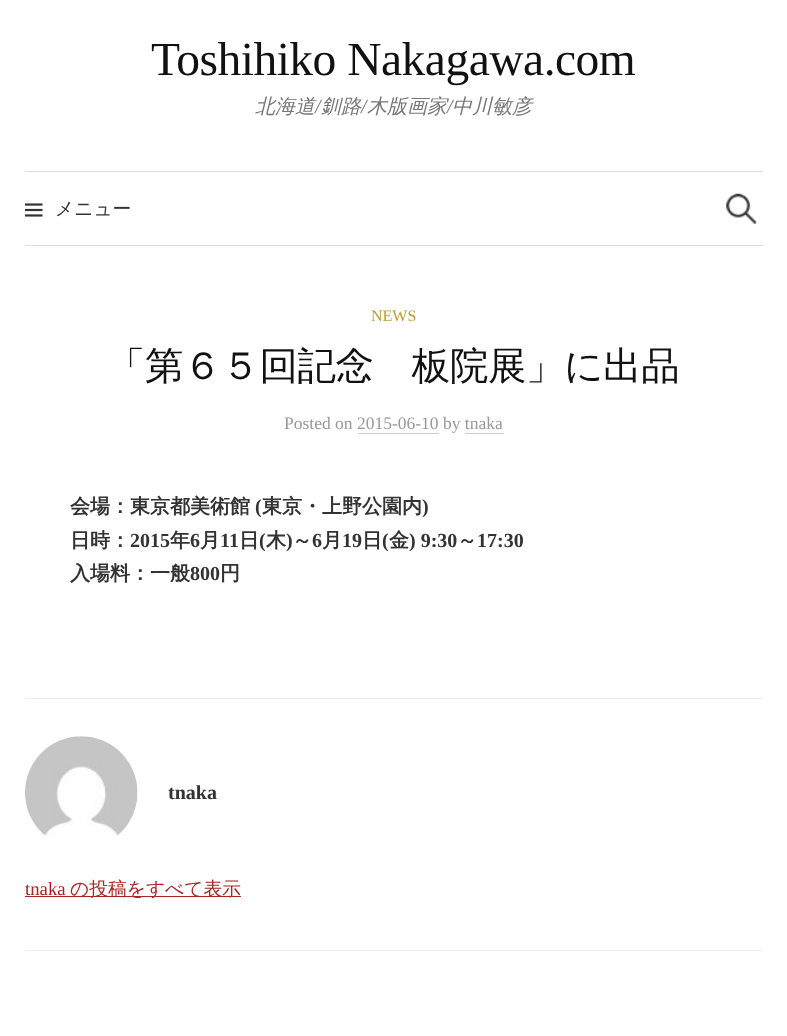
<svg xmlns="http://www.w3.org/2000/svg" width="787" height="1036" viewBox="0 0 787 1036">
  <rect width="100%" height="100%" fill="#fff"/>
  <path d="M25 171h738v1H25z" fill="#ddd"/>
  <path d="M25 245h738v1H25z" fill="#ddd"/>
  <image x="25" y="203" width="18" height="14" href="img/1.png"/>
  <image x="726" y="193" width="31" height="31" href="img/2.png"/>
  <path d="M358 433h81v1H358z" fill="#ccc"/>
  <path d="M465 433h39v1H465z" fill="#ccc"/>
  <path d="M25 698h738v1H25z" fill="#eee"/>
  <path d="M25 950h738v1H25z" fill="#eee"/>
  <image x="25" y="736" width="113" height="100" href="img/3.png"/>
  <path d="M25 896h216v1H25z" fill="#a62425"/>
  <text x="151" y="75" font-family="Liberation Serif" font-size="47.5" letter-spacing="-0.5" fill="#111">Toshihiko Nakagawa.com</text>
  <text x="255" y="113" font-family="WenQuanYi Zen Hei" font-size="20" font-weight="500" font-style="italic" fill="#777">北海道</text>
  <text x="315" y="113" font-family="Liberation Serif" font-size="20" font-style="italic" fill="#777">/</text>
  <text x="321" y="113" font-family="WenQuanYi Zen Hei" font-size="20" font-weight="500" font-style="italic" fill="#777">釧路</text>
  <text x="361" y="113" font-family="Liberation Serif" font-size="20" font-style="italic" fill="#777">/</text>
  <text x="367" y="113" font-family="WenQuanYi Zen Hei" font-size="20" font-weight="500" font-style="italic" fill="#777">木版画家</text>
  <text x="447" y="113" font-family="Liberation Serif" font-size="20" font-style="italic" fill="#777">/</text>
  <text x="452" y="113" font-family="WenQuanYi Zen Hei" font-size="20" font-weight="500" font-style="italic" fill="#777">中川敏彦</text>
  <text x="55" y="215" font-family="WenQuanYi Zen Hei" font-size="18.75" font-weight="500" fill="#333">メニュー</text>
  <text x="371" y="321" font-family="Liberation Serif" font-size="16" fill="#ba9e30">NEWS</text>
  <text x="107" y="379" font-family="WenQuanYi Zen Hei" font-size="38.5" font-weight="500" letter-spacing="-0.4" fill="#111">「第６５回記念　板院展」に出品</text>
  <text x="284" y="429" font-family="Liberation Serif" font-size="17.5" fill="#999">Posted on 2015-06-10 by tnaka</text>
  <text x="70" y="513" font-family="WenQuanYi Zen Hei" font-size="20" font-weight="bold" fill="#333">会場：東京都美術館</text>
  <text x="255" y="513" font-family="Liberation Serif" font-size="20" font-weight="bold" fill="#333">(</text>
  <text x="262" y="513" font-family="WenQuanYi Zen Hei" font-size="20" font-weight="bold" fill="#333">東京・上野公園内</text>
  <text x="422" y="513" font-family="Liberation Serif" font-size="20" font-weight="bold" fill="#333">)</text>
  <text x="70" y="547" font-family="WenQuanYi Zen Hei" font-size="20" font-weight="bold" fill="#333">日時：</text>
  <text x="130" y="547" font-family="Liberation Serif" font-size="20" font-weight="bold" fill="#333">2015</text>
  <text x="170" y="547" font-family="WenQuanYi Zen Hei" font-size="20" font-weight="bold" fill="#333">年</text>
  <text x="190" y="547" font-family="Liberation Serif" font-size="20" font-weight="bold" fill="#333">6</text>
  <text x="200" y="547" font-family="WenQuanYi Zen Hei" font-size="20" font-weight="bold" fill="#333">月</text>
  <text x="220" y="547" font-family="Liberation Serif" font-size="20" font-weight="bold" fill="#333">11</text>
  <text x="239" y="547" font-family="WenQuanYi Zen Hei" font-size="20" font-weight="bold" fill="#333">日</text>
  <text x="259" y="547" font-family="Liberation Serif" font-size="20" font-weight="bold" fill="#333">(</text>
  <text x="266" y="547" font-family="WenQuanYi Zen Hei" font-size="20" font-weight="bold" fill="#333">木</text>
  <text x="286" y="547" font-family="Liberation Serif" font-size="20" font-weight="bold" fill="#333">)</text>
  <text x="292" y="547" font-family="WenQuanYi Zen Hei" font-size="20" font-weight="bold" fill="#333">～</text>
  <text x="312" y="547" font-family="Liberation Serif" font-size="20" font-weight="bold" fill="#333">6</text>
  <text x="322" y="547" font-family="WenQuanYi Zen Hei" font-size="20" font-weight="bold" fill="#333">月</text>
  <text x="342" y="547" font-family="Liberation Serif" font-size="20" font-weight="bold" fill="#333">19</text>
  <text x="362" y="547" font-family="WenQuanYi Zen Hei" font-size="20" font-weight="bold" fill="#333">日</text>
  <text x="382" y="547" font-family="Liberation Serif" font-size="20" font-weight="bold" fill="#333">(</text>
  <text x="389" y="547" font-family="WenQuanYi Zen Hei" font-size="20" font-weight="bold" fill="#333">金</text>
  <text x="409" y="547" font-family="Liberation Serif" font-size="20" font-weight="bold" fill="#333">) 9:30</text>
  <text x="457" y="547" font-family="WenQuanYi Zen Hei" font-size="20" font-weight="bold" fill="#333">～</text>
  <text x="477" y="547" font-family="Liberation Serif" font-size="20" font-weight="bold" fill="#333">17:30</text>
  <text x="70" y="580" font-family="WenQuanYi Zen Hei" font-size="20" font-weight="bold" fill="#333">入場料：一般</text>
  <text x="190" y="580" font-family="Liberation Serif" font-size="20" font-weight="bold" fill="#333">800</text>
  <text x="220" y="580" font-family="WenQuanYi Zen Hei" font-size="20" font-weight="bold" fill="#333">円</text>
  <text x="168" y="799" font-family="Liberation Serif" font-size="20" font-weight="bold" fill="#333">tnaka</text>
  <text x="25" y="895" font-family="Liberation Serif" font-size="18.75" fill="#a62425">tnaka</text>
  <text x="70" y="895" font-family="WenQuanYi Zen Hei" font-size="18.75" font-weight="500" fill="#a62425">の投稿をすべて表示</text>
</svg>
